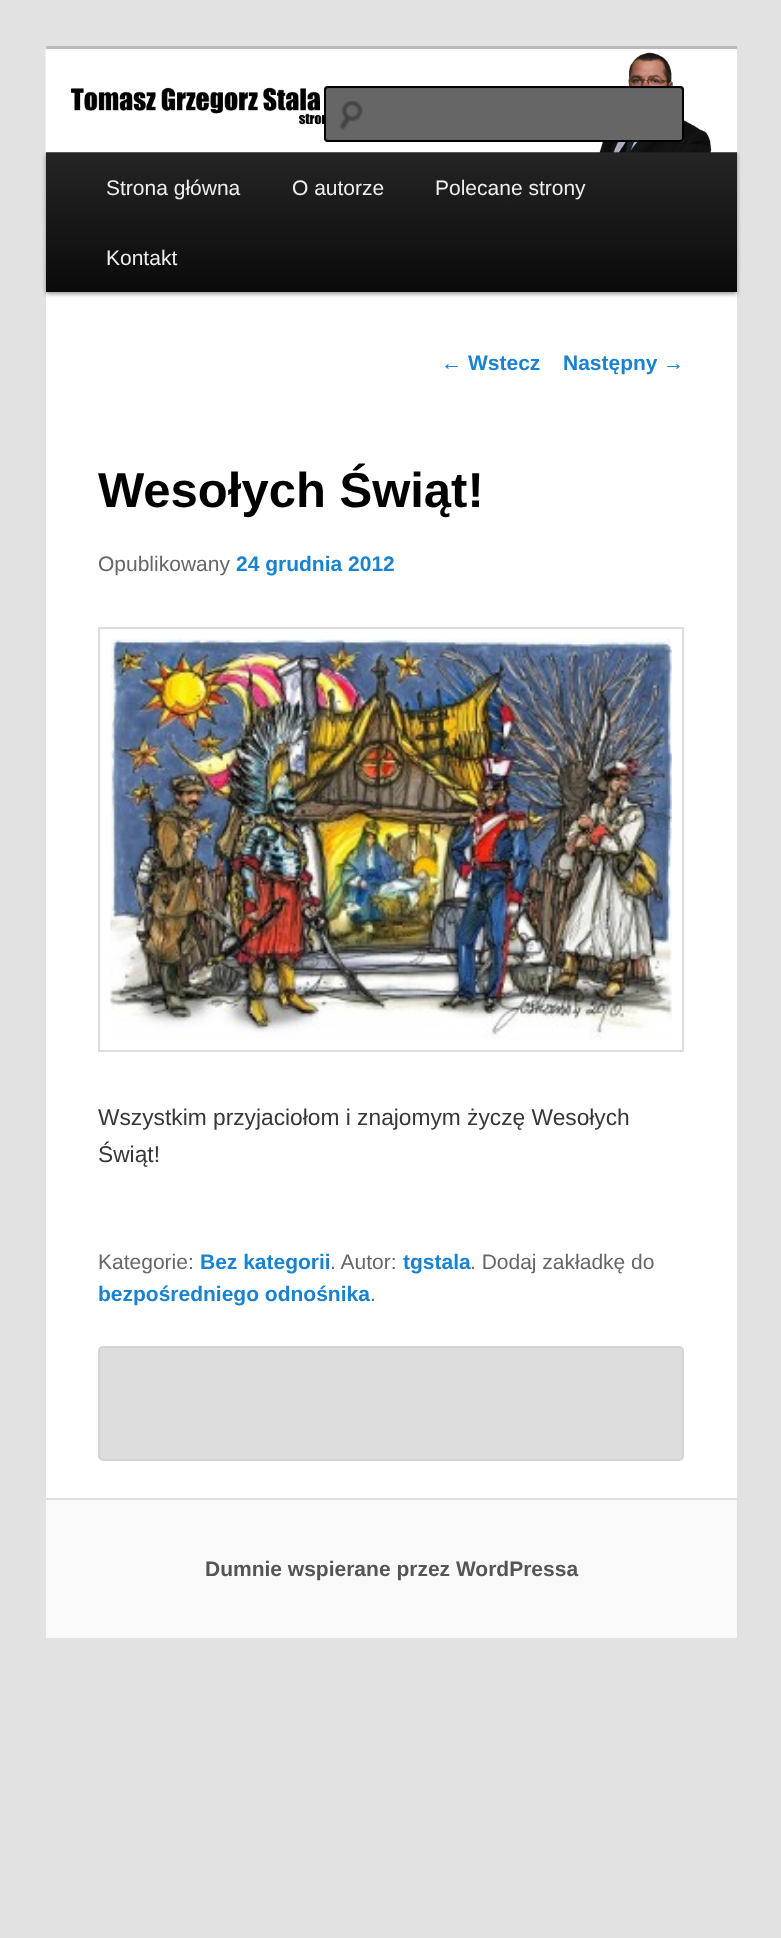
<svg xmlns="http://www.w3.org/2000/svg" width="781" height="1938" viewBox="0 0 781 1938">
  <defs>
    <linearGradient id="g1" gradientUnits="userSpaceOnUse" x1="391" y1="152" x2="391" y2="292"><stop offset="0" stop-color="#252525"/><stop offset="1" stop-color="#0a0a0a"/></linearGradient>
  </defs>
  <rect width="100%" height="100%" fill="#e2e2e2"/>
  <path d="M46 50h691v1448H46z" fill="#fff"/>
  <path d="M46 46h691v4H46z" fill="#bbb"/>
  <path d="M46 154h691v140H46z" fill="#00000066" filter="blur(2px)"/>
  <path d="M46 152h691v140H46z" fill="url(#g1)"/>
  <image x="45" y="49" width="692" height="104" href="img/1.png"/>
  <rect x="324" y="86" width="360" height="56" rx="4" fill="#666"/>
  <image x="339" y="100" width="24" height="30" href="img/2.png"/>
  <path d="M327 89H681C682 89 682 90 682 91V140L683 138V90C683 89 682 88 681 88H328C326 88 326 90 326 91C326 90 326 89 327 89Z" fill="#5c5c5c"/>
  <rect x="325" y="87" width="358" height="54" rx="3" fill="none" stroke="#000" stroke-width="2"/>
  <path d="M99 628h584v423H99z" fill="none" stroke="#ddd" stroke-width="2"/>
  <image x="110" y="638" width="562" height="402" href="img/3.png"/>
  <rect x="99" y="1347" width="584" height="113" rx="4" fill="#ddd" stroke="#d3d3d3" stroke-width="2"/>
  <path d="M46 1500h691v138H46z" fill="#f9f9f9"/>
  <path d="M46 1498h691v2H46z" fill="#ddd"/>
  <g font-family="Liberation Sans" font-size="21" fill="#eee">
    <text x="106" y="195">Strona główna</text>
    <text x="292" y="195">O autorze</text>
    <text x="435" y="195">Polecane strony</text>
    <text x="106" y="265">Kontakt</text>
  </g>
  <text x="441" y="370" font-family="Liberation Sans" font-size="21" fill="#1982d1">←</text>
  <g font-family="Liberation Sans" font-size="21" font-weight="bold" fill="#1982d1">
    <text x="468" y="370">Wstecz</text>
    <text x="563" y="370">Następny</text>
  </g>
  <text x="663" y="370" font-family="Liberation Sans" font-size="21" fill="#1982d1">→</text>
  <text x="98" y="507" font-family="Liberation Sans" font-size="49" font-weight="bold" fill="#000">Wesołych Świąt!</text>
  <text x="98" y="571" font-family="Liberation Sans" font-size="21" fill="#666">Opublikowany</text>
  <text x="236" y="571" font-family="Liberation Sans" font-size="21" font-weight="bold" fill="#1982d1">24 grudnia 2012</text>
  <g font-family="Liberation Sans" font-size="22.75" fill="#373737">
    <text x="98" y="1125">Wszystkim przyjaciołom i znajomym życzę Wesołych</text>
    <text x="98" y="1162">Świąt!</text>
  </g>
  <text x="98" y="1269" font-family="Liberation Sans" font-size="21" fill="#666">Kategorie:</text>
  <text x="200" y="1269" font-family="Liberation Sans" font-size="21" font-weight="bold" fill="#1982d1">Bez kategorii</text>
  <text x="330" y="1269" font-family="Liberation Sans" font-size="21" fill="#666">. Autor:</text>
  <text x="403" y="1269" font-family="Liberation Sans" font-size="21" font-weight="bold" fill="#1982d1">tgstala</text>
  <text x="470" y="1269" font-family="Liberation Sans" font-size="21" fill="#666">. Dodaj zakładkę do</text>
  <text x="98" y="1301" font-family="Liberation Sans" font-size="21" font-weight="bold" fill="#1982d1">bezpośredniego odnośnika</text>
  <text x="370" y="1301" font-family="Liberation Sans" font-size="21" fill="#666">.</text>
  <text x="205" y="1576" font-family="Liberation Sans" font-size="21" font-weight="bold" fill="#555">Dumnie wspierane przez WordPressa</text>
</svg>
